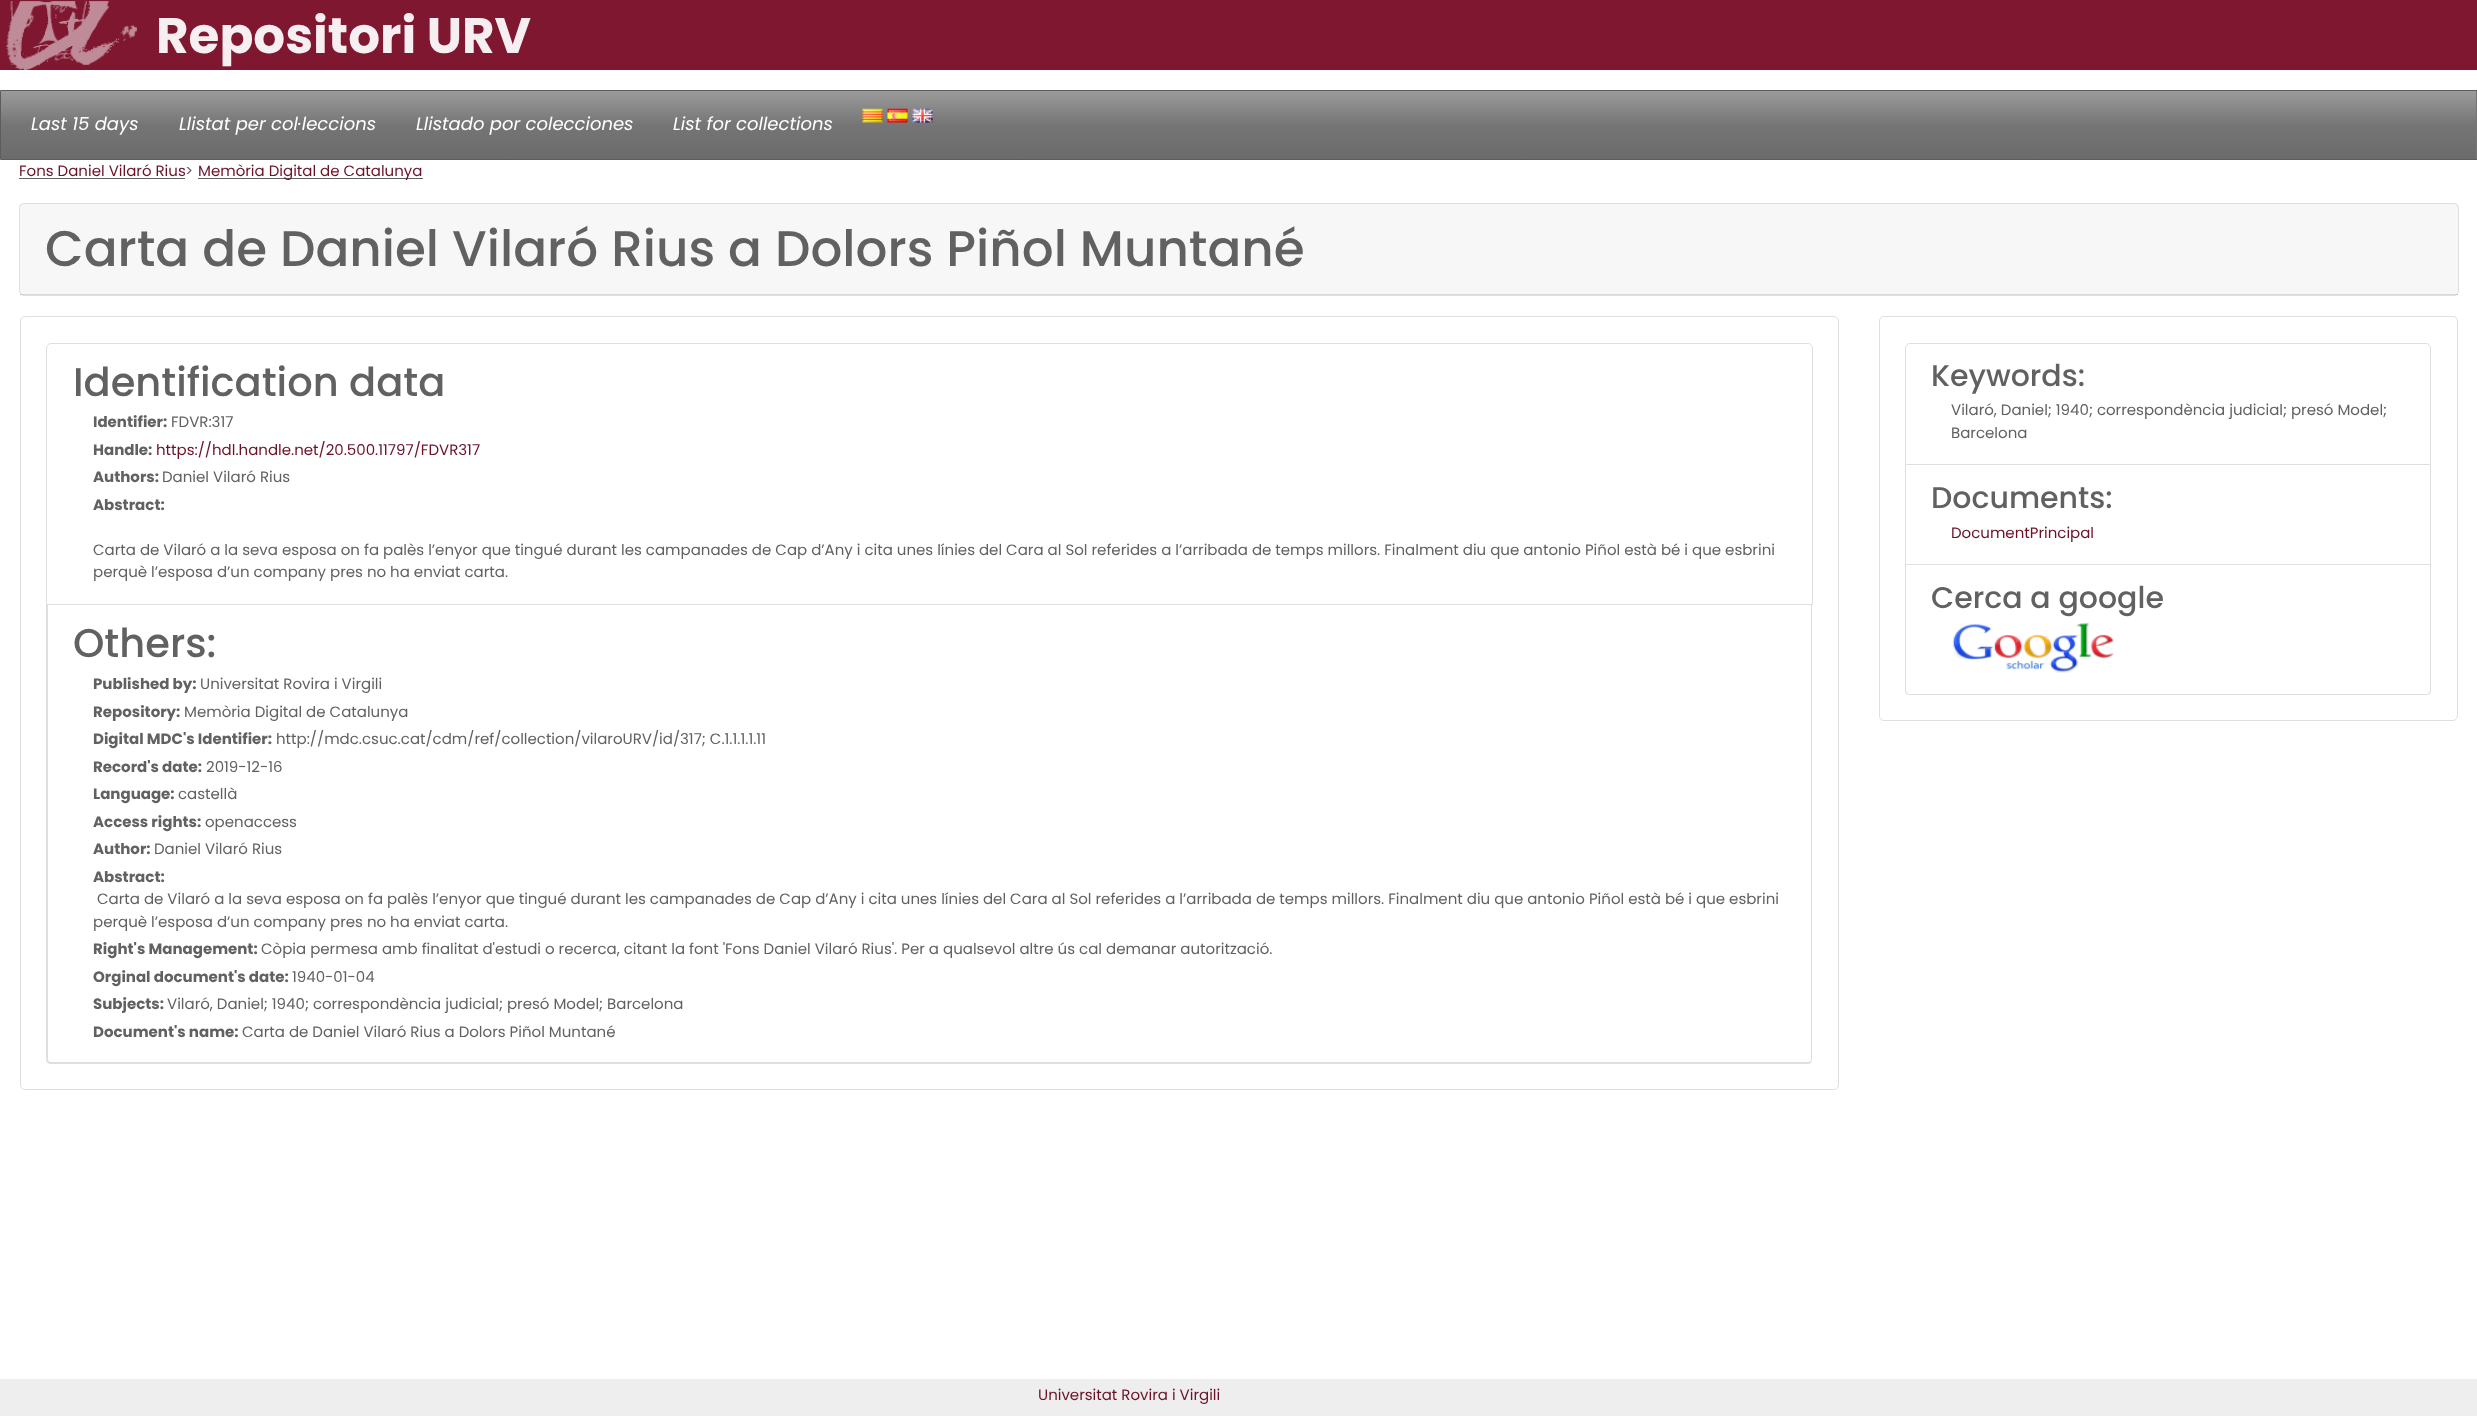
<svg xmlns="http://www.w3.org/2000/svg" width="2477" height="1416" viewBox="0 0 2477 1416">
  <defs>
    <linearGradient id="g1" gradientUnits="userSpaceOnUse" x1="1239" y1="91" x2="1239" y2="159"><stop offset="0" stop-color="#9b9b9b"/><stop offset="0.5" stop-color="#757575"/><stop offset="1" stop-color="#6b6b6b"/></linearGradient>
  </defs>
  <rect width="100%" height="100%" fill="#fff"/>
  <path d="M0 0h2477v70H0z" fill="#7f1730"/>
  <image x="6" y="1" width="131" height="69" href="img/1.png"/>
  <path d="M2476 91h1v68H2476z" fill="#757575"/>
  <path d="M1 91h2475v68H1z" fill="url(#g1)"/>
  <path d="M0.5 90.5h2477v69H0.5z" fill="none" stroke="#5c5c5c"/>
  <image x="862" y="108" width="21" height="15" href="img/2.png"/>
  <image x="887" y="108" width="21" height="15" href="img/3.png"/>
  <image x="912" y="108" width="21" height="15" href="img/4.png"/>
  <path d="M19 178h166v1H19z" fill="#616161"/>
  <path d="M198 178h225v1H198z" fill="#616161"/>
  <rect x="19.5" y="203.5" width="2439" height="92" rx="4.5" fill="none" stroke="#dfdfdf"/>
  <path d="M20 204h2438v91H20z" fill="#00000008"/>
  <path d="M20 294h2438v1H20z" fill="#0000001f"/>
  <rect x="20.5" y="316.5" width="1818" height="773" rx="4.5" fill="none" stroke="#dfdfdf"/>
  <path d="M51 343.5H1808C1810.5 343.5 1812.5 345.5 1812.5 348V604.5H46.5V348C46.5 345.5 48.5 343.5 51 343.5Z" fill="none" stroke="#dfdfdf"/>
  <path d="M46 605H1812V1059C1812 1062 1810 1064 1808 1064H51C48 1064 46 1062 46 1059ZM48 605H1811V1059C1811 1061 1810 1062 1808 1062H51C49 1062 48 1061 48 1059Z" fill="#dfdfdf" fill-rule="evenodd"/>
  <rect x="1879.5" y="316.5" width="578" height="404" rx="4.5" fill="none" stroke="#dfdfdf"/>
  <path d="M1910 343.5H2426C2428.5 343.5 2430.5 345.5 2430.5 348V464.5H1905.5V348C1905.5 345.5 1907.5 343.5 1910 343.5Z" fill="none" stroke="#dfdfdf"/>
  <path d="M2431 465V565L2430 564V465Z" fill="#dfdfdf"/>
  <path d="M2431 565H1905L1906 564H2430Z" fill="#0000001f"/>
  <path d="M1905 565V465H1906V564Z" fill="#0000001f"/>
  <path d="M1905 565H2431V690C2431 693 2429 695 2426 695H1910C1907 695 1905 693 1905 690ZM1906 565H2430V690C2430 692 2428 694 2426 694H1910C1908 694 1906 692 1906 690Z" fill="#dfdfdf" fill-rule="evenodd"/>
  <image x="1952" y="622" width="162" height="51" href="img/5.png"/>
  <path d="M0 1379h2477v37H0z" fill="#eee"/>
  <text x="156" y="53" font-family="Poppins" font-size="50" font-weight="bold" fill="#f6eef0">Repositori URV</text>
  <g font-family="Poppins" font-size="18" font-style="italic" fill="#fff">
    <text x="31" y="130">Last 15 days</text>
    <text x="179" y="130">Llistat per col·leccions</text>
    <text x="416" y="130">Llistado por colecciones</text>
    <text x="673" y="130">List for collections</text>
  </g>
  <text x="19" y="176" font-family="Poppins" font-size="15" fill="#6b1229">Fons Daniel Vilaró Rius</text>
  <text x="185" y="176" font-family="Poppins" font-size="15" fill="#616161">&gt;</text>
  <text x="198" y="176" font-family="Poppins" font-size="15" fill="#6b1229">Memòria Digital de Catalunya</text>
  <text x="45" y="266" font-family="Poppins" font-size="50" font-weight="500" fill="#616161">Carta de Daniel Vilaró Rius a Dolors Piñol Muntané</text>
  <text x="73" y="396" font-family="Poppins" font-size="40" font-weight="500" fill="#616161">Identification data</text>
  <text x="93" y="427" font-family="Poppins" font-size="15" font-weight="bold" fill="#616161">Identifier:</text>
  <text x="171" y="427" font-family="Poppins" font-size="15" fill="#616161">FDVR:317</text>
  <text x="93" y="455" font-family="Poppins" font-size="15" font-weight="bold" fill="#616161">Handle:</text>
  <text x="156" y="455" font-family="Poppins" font-size="15" fill="#6b1229">https://hdl.handle.net/20.500.11797/FDVR317</text>
  <text x="93" y="482" font-family="Poppins" font-size="15" font-weight="bold" fill="#616161">Authors:</text>
  <text x="162" y="482" font-family="Poppins" font-size="15" fill="#616161">Daniel Vilaró Rius</text>
  <text x="93" y="510" font-family="Poppins" font-size="15" font-weight="bold" fill="#616161">Abstract:</text>
  <g font-family="Poppins" font-size="15" fill="#616161">
    <text x="93" y="555">Carta de Vilaró a la seva esposa on fa palès l’enyor que tingué durant les campanades de Cap d’Any i cita unes línies del Cara al Sol referides a l’arribada de temps millors. Finalment diu que antonio Piñol està bé i que esbrini</text>
    <text x="93" y="577">perquè l’esposa d’un company pres no ha enviat carta.</text>
  </g>
  <text x="73" y="657" font-family="Poppins" font-size="40" font-weight="500" fill="#616161">Others:</text>
  <text x="93" y="689" font-family="Poppins" font-size="15" font-weight="bold" fill="#616161">Published by:</text>
  <text x="200" y="689" font-family="Poppins" font-size="15" fill="#616161">Universitat Rovira i Virgili</text>
  <text x="93" y="717" font-family="Poppins" font-size="15" font-weight="bold" fill="#616161">Repository:</text>
  <text x="184" y="717" font-family="Poppins" font-size="15" fill="#616161">Memòria Digital de Catalunya</text>
  <text x="93" y="744" font-family="Poppins" font-size="15" font-weight="bold" fill="#616161">Digital MDC's Identifier:</text>
  <text x="276" y="744" font-family="Poppins" font-size="15" fill="#616161">http://mdc.csuc.cat/cdm/ref/collection/vilaroURV/id/317; C.1.1.1.1.11</text>
  <text x="93" y="772" font-family="Poppins" font-size="15" font-weight="bold" fill="#616161">Record's date:</text>
  <text x="206" y="772" font-family="Poppins" font-size="15" fill="#616161">2019-12-16</text>
  <text x="93" y="799" font-family="Poppins" font-size="15" font-weight="bold" fill="#616161">Language:</text>
  <text x="178" y="799" font-family="Poppins" font-size="15" fill="#616161">castellà</text>
  <text x="93" y="827" font-family="Poppins" font-size="15" font-weight="bold" fill="#616161">Access rights:</text>
  <text x="205" y="827" font-family="Poppins" font-size="15" fill="#616161">openaccess</text>
  <text x="93" y="854" font-family="Poppins" font-size="15" font-weight="bold" fill="#616161">Author:</text>
  <text x="154" y="854" font-family="Poppins" font-size="15" fill="#616161">Daniel Vilaró Rius</text>
  <text x="93" y="882" font-family="Poppins" font-size="15" font-weight="bold" fill="#616161">Abstract:</text>
  <g font-family="Poppins" font-size="15" fill="#616161">
    <text x="97" y="904">Carta de Vilaró a la seva esposa on fa palès l’enyor que tingué durant les campanades de Cap d’Any i cita unes línies del Cara al Sol referides a l’arribada de temps millors. Finalment diu que antonio Piñol està bé i que esbrini</text>
    <text x="93" y="927">perquè l’esposa d’un company pres no ha enviat carta.</text>
  </g>
  <text x="93" y="954" font-family="Poppins" font-size="15" font-weight="bold" fill="#616161">Right's Management:</text>
  <text x="261" y="954" font-family="Poppins" font-size="15" fill="#616161">Còpia permesa amb finalitat d'estudi o recerca, citant la font 'Fons Daniel Vilaró Rius'. Per a qualsevol altre ús cal demanar autorització.</text>
  <text x="93" y="982" font-family="Poppins" font-size="15" font-weight="bold" fill="#616161">Orginal document's date:</text>
  <text x="292" y="982" font-family="Poppins" font-size="15" fill="#616161">1940-01-04</text>
  <text x="93" y="1009" font-family="Poppins" font-size="15" font-weight="bold" fill="#616161">Subjects:</text>
  <text x="167" y="1009" font-family="Poppins" font-size="15" fill="#616161">Vilaró, Daniel; 1940; correspondència judicial; presó Model; Barcelona</text>
  <text x="93" y="1037" font-family="Poppins" font-size="15" font-weight="bold" fill="#616161">Document's name:</text>
  <text x="242" y="1037" font-family="Poppins" font-size="15" fill="#616161">Carta de Daniel Vilaró Rius a Dolors Piñol Muntané</text>
  <text x="1931" y="386" font-family="Poppins" font-size="30" font-weight="500" fill="#616161">Keywords:</text>
  <g font-family="Poppins" font-size="15" fill="#616161">
    <text x="1951" y="415">Vilaró, Daniel; 1940; correspondència judicial; presó Model;</text>
    <text x="1951" y="438">Barcelona</text>
  </g>
  <text x="1931" y="508" font-family="Poppins" font-size="30" font-weight="500" fill="#616161">Documents:</text>
  <text x="1951" y="538" font-family="Poppins" font-size="15" fill="#6b1229">DocumentPrincipal</text>
  <text x="1931" y="608" font-family="Poppins" font-size="30" font-weight="500" fill="#616161">Cerca a google</text>
  <text x="1038" y="1400" font-family="Poppins" font-size="15" fill="#6b1229">Universitat Rovira i Virgili</text>
</svg>
